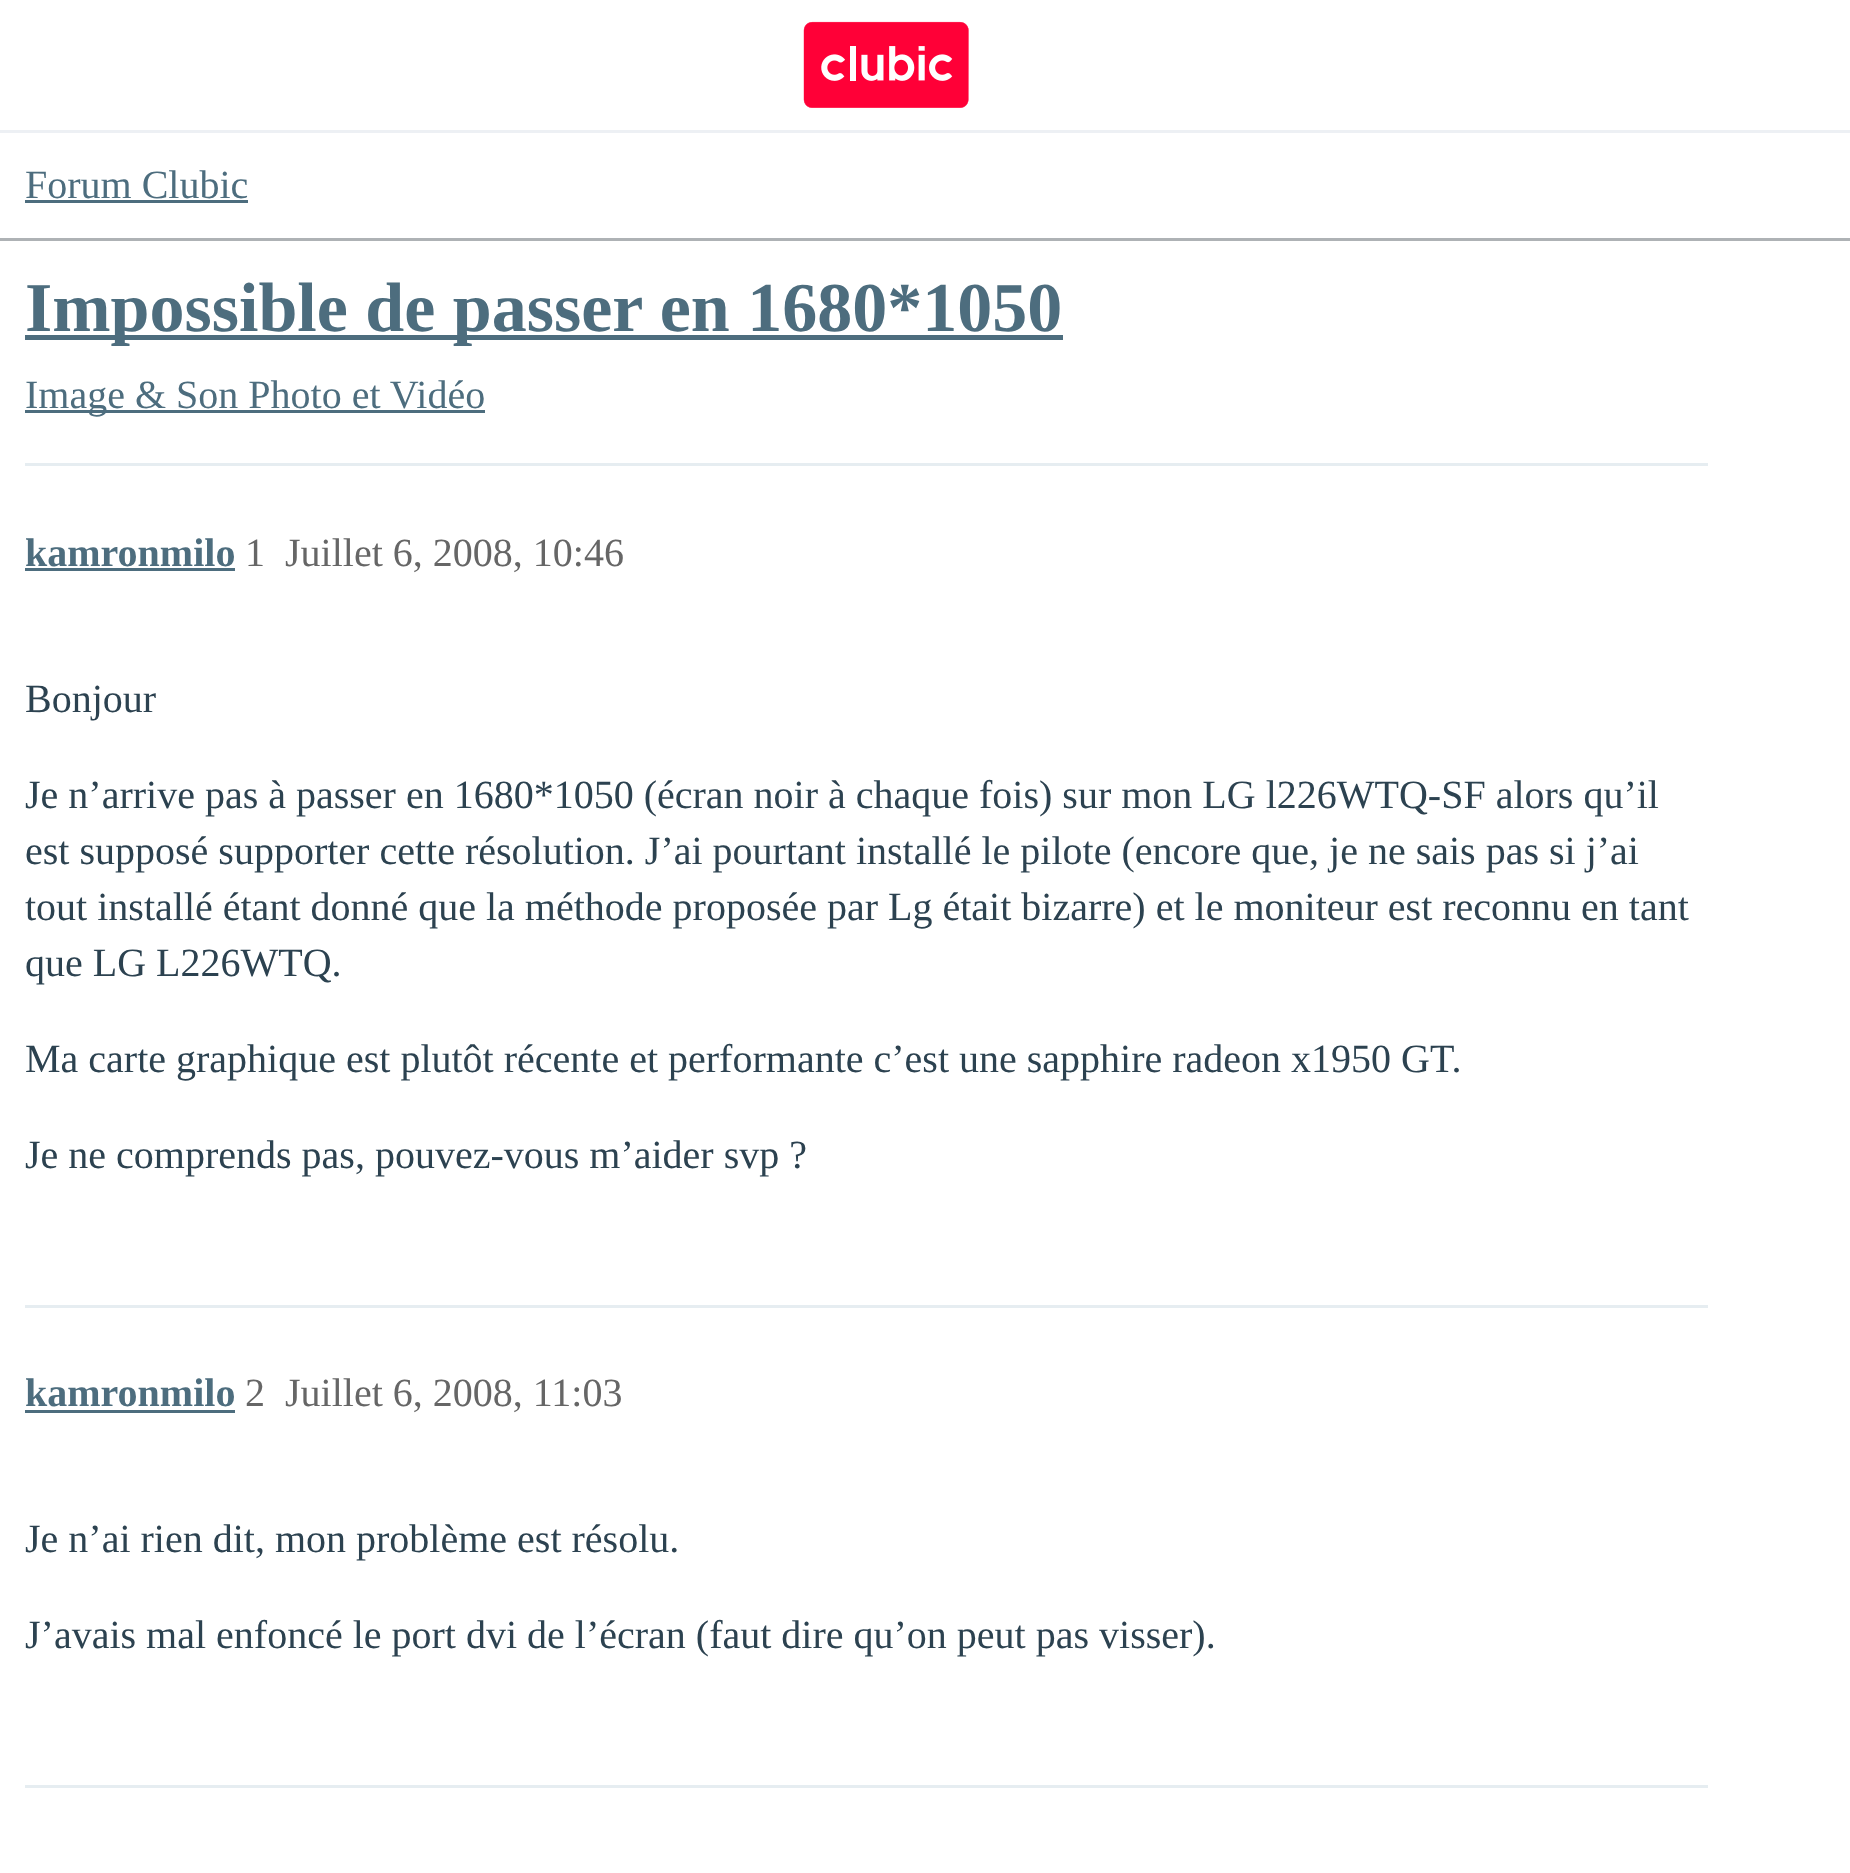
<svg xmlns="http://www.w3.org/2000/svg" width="1850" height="1873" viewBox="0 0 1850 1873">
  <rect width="100%" height="100%" fill="#fff"/>
  <path d="M0 130h1850v3H0z" fill="#edf0f4"/>
  <image x="803" y="21" width="166" height="87" href="img/1.png"/>
  <path d="M0 238h1850v3H0z" fill="#aeb2b5"/>
  <path d="M25 200h223v3H25z" fill="#4d6d7e"/>
  <path d="M25 335h1038v5H25z" fill="#4d6d7e"/>
  <path d="M25 410h460v3H25z" fill="#4d6d7e"/>
  <path d="M25 463h1683v3H25z" fill="#e6edf1"/>
  <path d="M25 568h210v3H25z" fill="#4d6d7e"/>
  <path d="M25 1305h1683v3H25z" fill="#e6edf1"/>
  <path d="M25 1410h210v3H25z" fill="#4d6d7e"/>
  <path d="M25 1785h1683v3H25z" fill="#e6edf1"/>
  <text x="25" y="198" font-family="Liberation Serif" font-size="40" fill="#4d6d7e">Forum Clubic</text>
  <text x="25" y="331" font-family="Liberation Serif" font-size="70" font-weight="bold" fill="#4d6d7e">Impossible de passer en 1680*1050</text>
  <text x="25" y="408" font-family="Liberation Serif" font-size="40" fill="#4d6d7e">Image &amp; Son Photo et Vidéo</text>
  <text x="25" y="566" font-family="Liberation Serif" font-size="40" font-weight="bold" fill="#4d6d7e">kamronmilo</text>
  <g font-family="Liberation Serif" font-size="40" fill="#666">
    <text x="245" y="566">1</text>
    <text x="285" y="566">Juillet 6, 2008, 10:46</text>
  </g>
  <g font-family="Liberation Serif" font-size="40" fill="#2c4250">
    <text x="25" y="712">Bonjour</text>
    <text x="25" y="808">Je n’arrive pas à passer en 1680*1050 (écran noir à chaque fois) sur mon LG l226WTQ-SF alors qu’il</text>
    <text x="25" y="864">est supposé supporter cette résolution. J’ai pourtant installé le pilote (encore que, je ne sais pas si j’ai</text>
    <text x="25" y="920">tout installé étant donné que la méthode proposée par Lg était bizarre) et le moniteur est reconnu en tant</text>
    <text x="25" y="976">que LG L226WTQ.</text>
    <text x="25" y="1072">Ma carte graphique est plutôt récente et performante c’est une sapphire radeon x1950 GT.</text>
    <text x="25" y="1168">Je ne comprends pas, pouvez-vous m’aider svp ?</text>
  </g>
  <text x="25" y="1406" font-family="Liberation Serif" font-size="40" font-weight="bold" fill="#4d6d7e">kamronmilo</text>
  <g font-family="Liberation Serif" font-size="40" fill="#666">
    <text x="245" y="1406">2</text>
    <text x="285" y="1406">Juillet 6, 2008, 11:03</text>
  </g>
  <g font-family="Liberation Serif" font-size="40" fill="#2c4250">
    <text x="25" y="1552">Je n’ai rien dit, mon problème est résolu.</text>
    <text x="25" y="1648">J’avais mal enfoncé le port dvi de l’écran (faut dire qu’on peut pas visser).</text>
  </g>
</svg>
